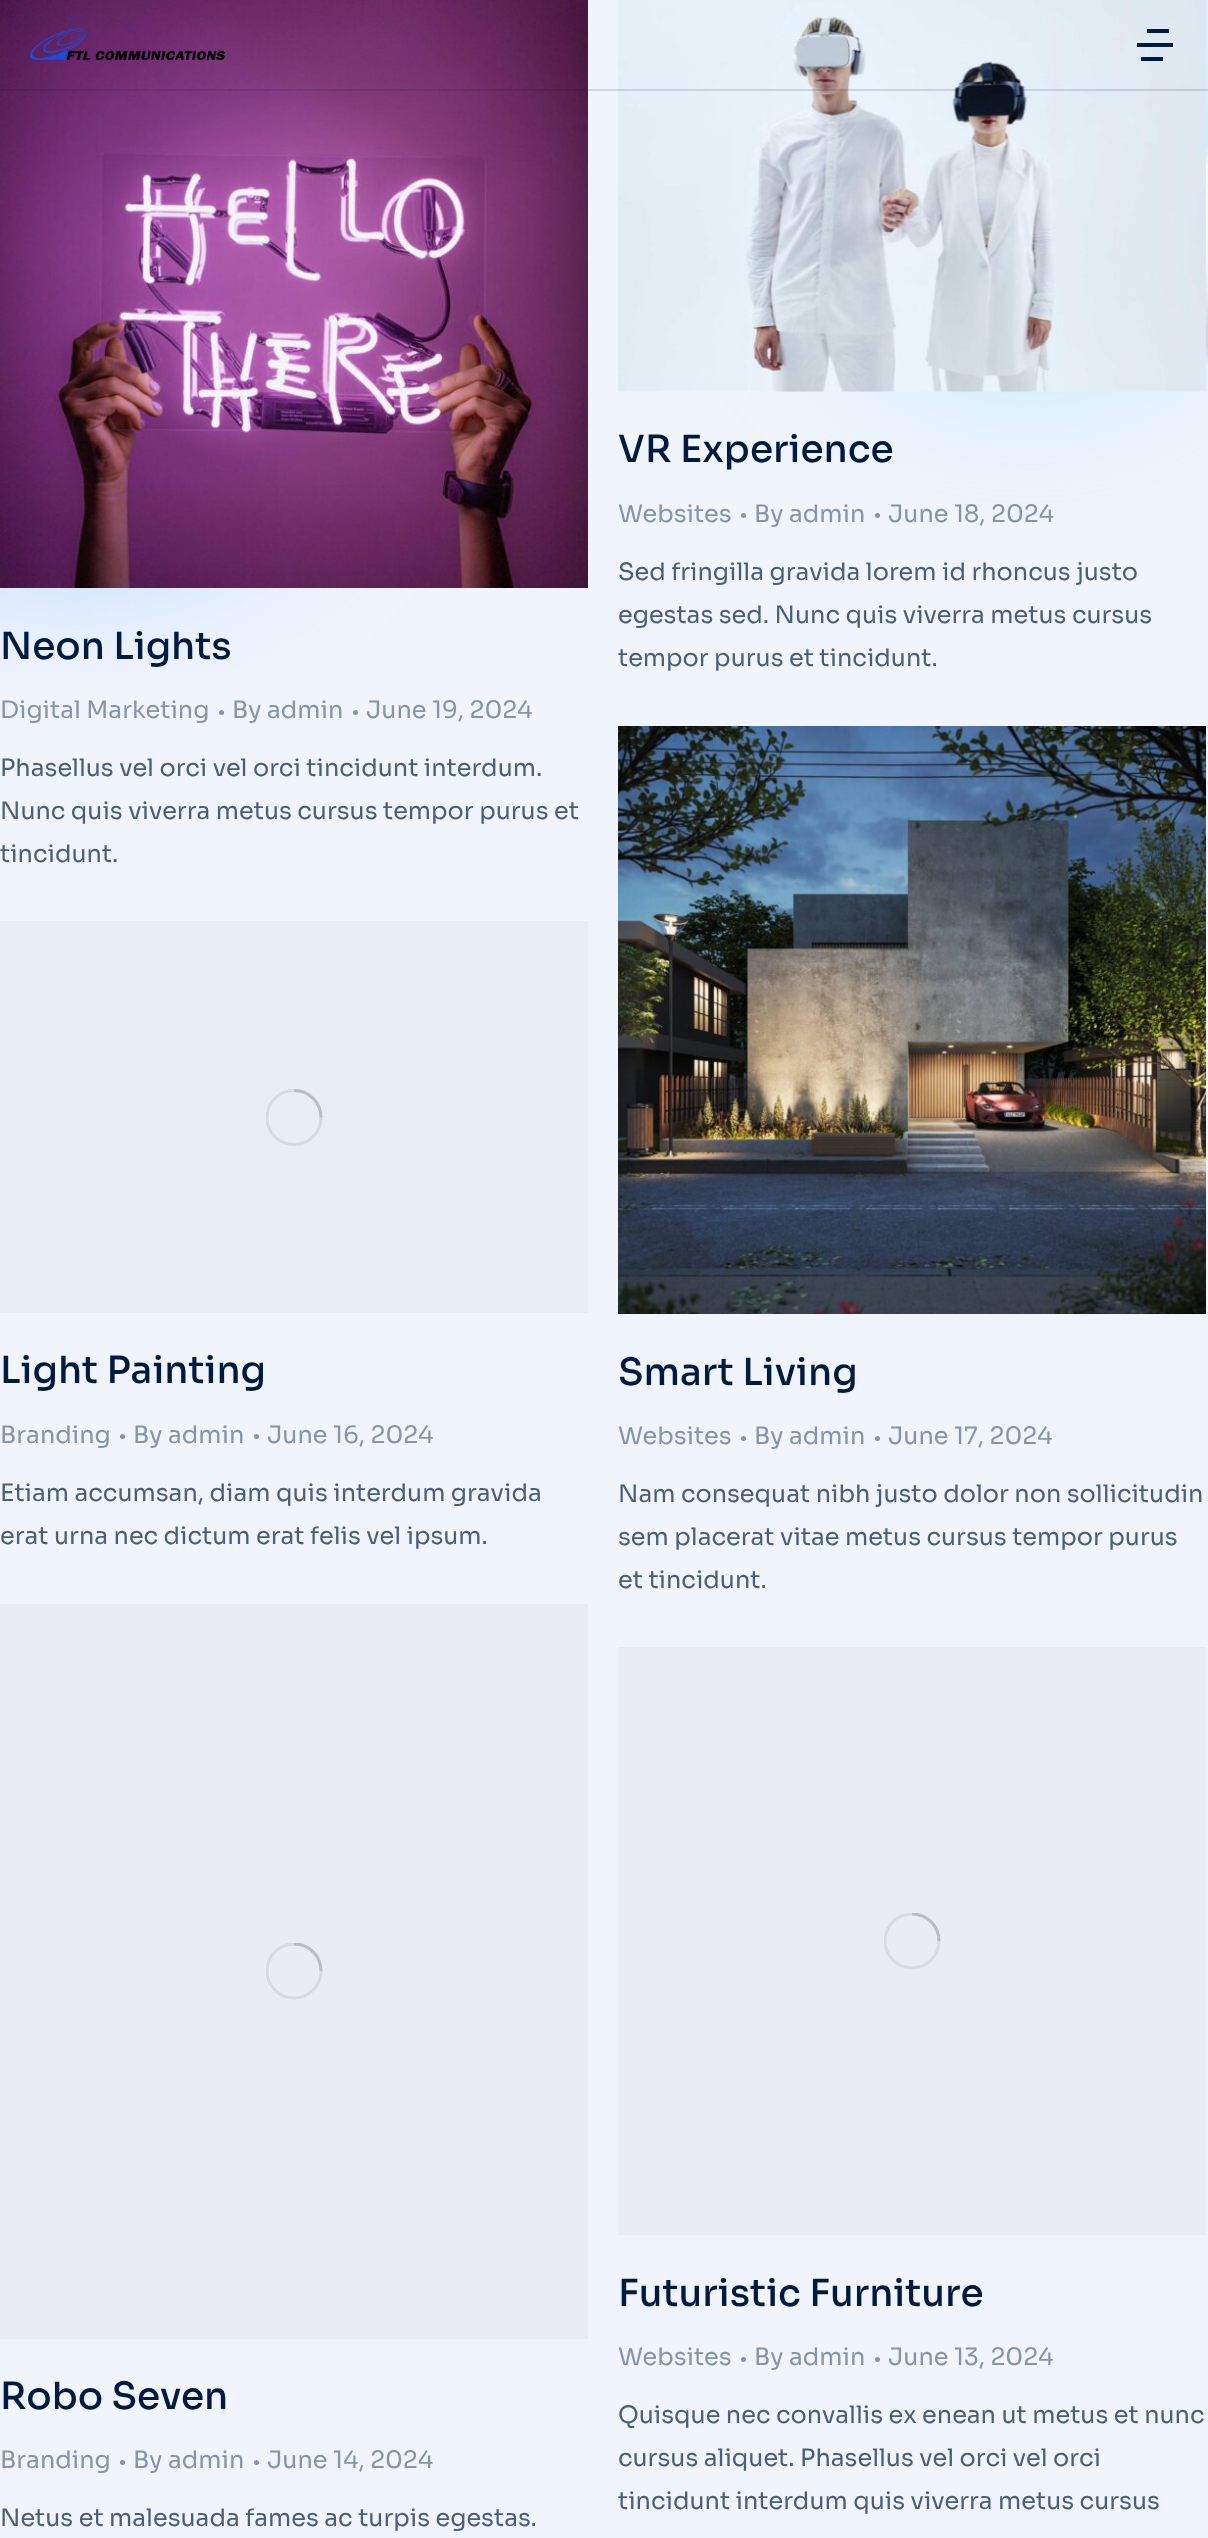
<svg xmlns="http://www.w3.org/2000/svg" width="1208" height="2538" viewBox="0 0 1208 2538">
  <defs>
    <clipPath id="clip1"><path d="M266 1089h57v57H266z"/></clipPath>
    <clipPath id="clip2"><path d="M266 1943h57v57H266z"/></clipPath>
    <clipPath id="clip3"><path d="M884 1913h57v57H884z"/></clipPath>
  </defs>
  <rect width="100%" height="100%" fill="#eff4fd"/>
  <image x="0" y="0" width="1208" height="672" href="img/1.png"/>
  <image x="618" y="0" width="588" height="392" href="img/3.png"/>
  <image x="0" y="0" width="588" height="588" href="img/4.png"/>
  <path d="M0 89h1208v2H0z" fill="#001a4021"/>
  <image x="30" y="28" width="195" height="32" href="img/2.png"/>
  <path d="M1163 57V61H1141V57ZM1173 43V47H1137V43ZM1169 29V33H1147V29Z" fill="#001a40"/>
  <circle cx="743.5" cy="515.5" r="2.5" fill="#8694aa"/>
  <circle cx="877.5" cy="515.5" r="2.5" fill="#8694aa"/>
  <circle cx="221.5" cy="712.5" r="2.5" fill="#8694aa"/>
  <circle cx="355.5" cy="712.5" r="2.5" fill="#8694aa"/>
  <path d="M0 921h588v392H0z" fill="#e9edf5"/>
  <g clip-path="url(#clip1)">
    <circle cx="294" cy="1117.5" r="27" fill="none" stroke="#d7dae1" stroke-width="3"/>
  </g>
  <path d="M321 1117.5C321 1102.5 309 1090.5 294 1090.5" fill="none" stroke="#66666640" stroke-width="3"/>
  <circle cx="122.5" cy="1436.5" r="2.5" fill="#8694aa"/>
  <circle cx="256.5" cy="1436.5" r="2.5" fill="#8694aa"/>
  <image x="618" y="726" width="588" height="588" href="img/5.png"/>
  <circle cx="743.5" cy="1438.5" r="2.5" fill="#8694aa"/>
  <circle cx="877.5" cy="1438.5" r="2.5" fill="#8694aa"/>
  <path d="M0 1604h588v735H0z" fill="#e9ecf6"/>
  <g clip-path="url(#clip2)">
    <circle cx="294" cy="1971" r="27" fill="none" stroke="#d7dae2" stroke-width="3"/>
    <path d="M321 1971C321 1956 309 1944 294 1944" fill="none" stroke="#66666640" stroke-width="3"/>
  </g>
  <circle cx="122.5" cy="2462.5" r="2.5" fill="#8694aa"/>
  <circle cx="256.5" cy="2462.5" r="2.5" fill="#8694aa"/>
  <path d="M618 1647h588v588H618z" fill="#e9ecf6"/>
  <g clip-path="url(#clip3)">
    <circle cx="912" cy="1941" r="27" fill="none" stroke="#d7dae2" stroke-width="3"/>
    <path d="M939 1941C939 1926 927 1914 912 1914" fill="none" stroke="#66666640" stroke-width="3"/>
  </g>
  <circle cx="743.5" cy="2359.5" r="2.5" fill="#8694aa"/>
  <circle cx="877.5" cy="2359.5" r="2.5" fill="#8694aa"/>
  <text x="618" y="462" font-family="Sora" font-size="37.5" font-weight="500" fill="#001a40">VR Experience</text>
  <g font-family="Sora" font-size="24" fill="#8694aa">
    <text x="618" y="522">Websites</text>
    <text x="754" y="522">By admin</text>
    <text x="888" y="522">June 18, 2024</text>
  </g>
  <g font-family="Sora" font-size="24" fill="#4a5e7b">
    <text x="618" y="580">Sed fringilla gravida lorem id rhoncus justo</text>
    <text x="618" y="623">egestas sed. Nunc quis viverra metus cursus</text>
    <text x="618" y="666">tempor purus et tincidunt.</text>
  </g>
  <text x="0" y="659" font-family="Sora" font-size="37.5" font-weight="500" fill="#001a40">Neon Lights</text>
  <g font-family="Sora" font-size="24" fill="#8694aa">
    <text x="0" y="718">Digital Marketing</text>
    <text x="232" y="718">By admin</text>
    <text x="366" y="718">June 19, 2024</text>
  </g>
  <g font-family="Sora" font-size="24" fill="#4a5e7b">
    <text x="0" y="776">Phasellus vel orci vel orci tincidunt interdum.</text>
    <text x="0" y="819">Nunc quis viverra metus cursus tempor purus et</text>
    <text x="0" y="862">tincidunt.</text>
  </g>
  <text x="0" y="1383" font-family="Sora" font-size="37.5" font-weight="500" fill="#001a40">Light Painting</text>
  <g font-family="Sora" font-size="24" fill="#8694aa">
    <text x="0" y="1443">Branding</text>
    <text x="133" y="1443">By admin</text>
    <text x="267" y="1443">June 16, 2024</text>
  </g>
  <g font-family="Sora" font-size="24" fill="#4a5e7b">
    <text x="0" y="1501">Etiam accumsan, diam quis interdum gravida</text>
    <text x="0" y="1544">erat urna nec dictum erat felis vel ipsum.</text>
  </g>
  <text x="618" y="1385" font-family="Sora" font-size="37.5" font-weight="500" fill="#001a40">Smart Living</text>
  <g font-family="Sora" font-size="24" fill="#8694aa">
    <text x="618" y="1444">Websites</text>
    <text x="754" y="1444">By admin</text>
    <text x="888" y="1444">June 17, 2024</text>
  </g>
  <g font-family="Sora" font-size="24" fill="#4a5e7b">
    <text x="618" y="1502">Nam consequat nibh justo dolor non sollicitudin</text>
    <text x="618" y="1545">sem placerat vitae metus cursus tempor purus</text>
    <text x="618" y="1588">et tincidunt.</text>
  </g>
  <text x="0" y="2409" font-family="Sora" font-size="37.5" font-weight="500" fill="#001a40">Robo Seven</text>
  <g font-family="Sora" font-size="24" fill="#8694aa">
    <text x="0" y="2468">Branding</text>
    <text x="133" y="2468">By admin</text>
    <text x="267" y="2468">June 14, 2024</text>
  </g>
  <text x="0" y="2526" font-family="Sora" font-size="24" fill="#4a5e7b">Netus et malesuada fames ac turpis egestas.</text>
  <text x="618" y="2306" font-family="Sora" font-size="37.5" font-weight="500" fill="#001a40">Futuristic Furniture</text>
  <g font-family="Sora" font-size="24" fill="#8694aa">
    <text x="618" y="2365">Websites</text>
    <text x="754" y="2365">By admin</text>
    <text x="888" y="2365">June 13, 2024</text>
  </g>
  <g font-family="Sora" font-size="24" fill="#4a5e7b">
    <text x="618" y="2423">Quisque nec convallis ex enean ut metus et nunc</text>
    <text x="618" y="2466">cursus aliquet. Phasellus vel orci vel orci</text>
    <text x="618" y="2509">tincidunt interdum quis viverra metus cursus</text>
  </g>
</svg>
